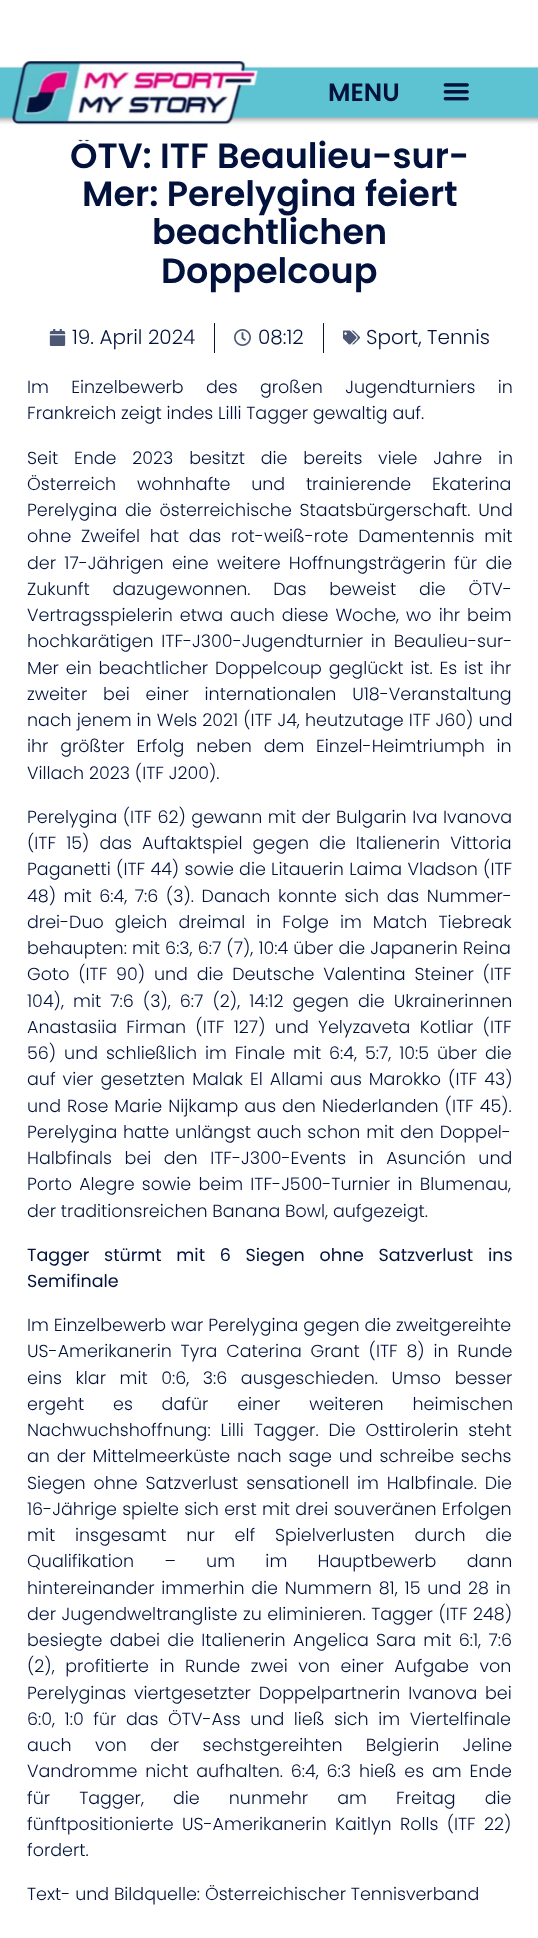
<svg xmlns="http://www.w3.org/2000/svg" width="538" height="1938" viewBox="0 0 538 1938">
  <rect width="100%" height="100%" fill="#fff"/>
  <image x="49" y="329" width="17" height="17" href="img/4.png"/>
  <path d="M214 323h1v30H214z" fill="#02123c"/>
  <image x="234" y="329" width="17" height="17" href="img/5.png"/>
  <path d="M323 323h1v30H323z" fill="#02123c"/>
  <image x="343" y="330" width="17" height="15" href="img/6.png"/>
  <text x="70" y="168" font-family="Poppins" font-size="35" font-weight="600" fill="#02123c">ÖTV: ITF Beaulieu-sur-</text>
  <image x="0" y="66" width="538" height="75" href="img/1.png"/>
  <image x="443" y="83" width="26" height="18" href="img/3.png"/>
  <text x="328" y="101" font-family="Poppins" font-size="25" font-weight="600" fill="#02123c">MENU</text>
  <image x="12" y="61" width="246" height="64" href="img/2.png"/>
  <g font-family="Poppins" font-size="35" font-weight="600" fill="#02123c">
    <text x="82" y="206">Mer: Perelygina feiert</text>
    <text x="152" y="244">beachtlichen</text>
    <text x="161" y="283">Doppelcoup</text>
  </g>
  <g font-family="Poppins" font-size="20" font-weight="300" fill="#02123c">
    <text x="72" y="344">19. April 2024</text>
    <text x="258" y="344">08:12</text>
    <text x="366" y="344">Sport, Tennis</text>
  </g>
  <g font-family="Poppins" font-size="17.5" font-weight="300" fill="#02123c">
    <text x="27" y="393" word-spacing="17.5">Im Einzelbewerb des großen Jugendturniers in</text>
    <text x="27" y="419">Frankreich zeigt indes Lilli Tagger gewaltig auf.</text>
    <text x="27" y="464" word-spacing="11">Seit Ende 2023 besitzt die bereits viele Jahre in</text>
    <text x="27" y="490" word-spacing="16">Österreich wohnhafte und trainierende Ekaterina</text>
    <text x="27" y="516" word-spacing="3">Perelygina die österreichische Staatsbürgerschaft. Und</text>
    <text x="27" y="542" word-spacing="5">ohne Zweifel hat das rot-weiß-rote Damentennis mit</text>
    <text x="27" y="569" word-spacing="3.5">der 17-Jährigen eine weitere Hoffnungsträgerin für die</text>
    <text x="27" y="595" word-spacing="18">Zukunft dazugewonnen. Das beweist die ÖTV-</text>
    <text x="27" y="621" word-spacing="2.25">Vertragsspielerin etwa auch diese Woche, wo ihr beim</text>
    <text x="27" y="647" word-spacing="3">hochkarätigen ITF-J300-Jugendturnier in Beaulieu-sur-</text>
    <text x="27" y="674" word-spacing="2">Mer ein beachtlicher Doppelcoup geglückt ist. Es ist ihr</text>
    <text x="27" y="700" word-spacing="11">zweiter bei einer internationalen U18-Veranstaltung</text>
    <text x="27" y="726" word-spacing="0.25">nach jenem in Wels 2021 (ITF J4, heutzutage ITF J60) und</text>
    <text x="27" y="752" word-spacing="7">ihr größter Erfolg neben dem Einzel-Heimtriumph in</text>
    <text x="27" y="779">Villach 2023 (ITF J200).</text>
    <text x="27" y="823" word-spacing="0.75">Perelygina (ITF 62) gewann mit der Bulgarin Iva Ivanova</text>
    <text x="27" y="849" word-spacing="5.25">(ITF 15) das Auftaktspiel gegen die Italienerin Vittoria</text>
    <text x="27" y="875" word-spacing="0.5">Paganetti (ITF 44) sowie die Litauerin Laima Vladson (ITF</text>
    <text x="27" y="902" word-spacing="2.75">48) mit 6:4, 7:6 (3). Danach konnte sich das Nummer-</text>
    <text x="27" y="928" word-spacing="6.25">drei-Duo gleich dreimal in Folge im Match Tiebreak</text>
    <text x="27" y="954" word-spacing="0.25">behaupten: mit 6:3, 6:7 (7), 10:4 über die Japanerin Reina</text>
    <text x="27" y="980" word-spacing="4">Goto (ITF 90) und die Deutsche Valentina Steiner (ITF</text>
    <text x="27" y="1007" word-spacing="4.25">104), mit 7:6 (3), 6:7 (2), 14:12 gegen die Ukrainerinnen</text>
    <text x="27" y="1033" word-spacing="4.5">Anastasiia Firman (ITF 127) und Yelyzaveta Kotliar (ITF</text>
    <text x="27" y="1059" word-spacing="3.1">56) und schließlich im Finale mit 6:4, 5:7, 10:5 über die</text>
    <text x="27" y="1085" word-spacing="2.25">auf vier gesetzten Malak El Allami aus Marokko (ITF 43)</text>
    <text x="27" y="1112" word-spacing="1.25">und Rose Marie Nijkamp aus den Niederlanden (ITF 45).</text>
    <text x="27" y="1138" word-spacing="1">Perelygina hatte unlängst auch schon mit den Doppel-</text>
    <text x="27" y="1164" word-spacing="7.75">Halbfinals bei den ITF-J300-Events in Asunción und</text>
    <text x="27" y="1190" word-spacing="2.5">Porto Alegre sowie beim ITF-J500-Turnier in Blumenau,</text>
    <text x="27" y="1217">der traditionsreichen Banana Bowl, aufgezeigt.</text>
  </g>
  <g font-family="Poppins" font-size="17.5" fill="#02123c">
    <text x="27" y="1261" word-spacing="10">Tagger stürmt mit 6 Siegen ohne Satzverlust ins</text>
    <text x="27" y="1287">Semifinale</text>
  </g>
  <g font-family="Poppins" font-size="17.5" font-weight="300" fill="#02123c">
    <text x="27" y="1331">Im Einzelbewerb war Perelygina gegen die zweitgereihte</text>
    <text x="27" y="1357" word-spacing="4">US-Amerikanerin Tyra Caterina Grant (ITF 8) in Runde</text>
    <text x="27" y="1384" word-spacing="8.75">eins klar mit 0:6, 3:6 ausgeschieden. Umso besser</text>
    <text x="27" y="1410" word-spacing="24">ergeht es dafür einer weiteren heimischen</text>
    <text x="27" y="1436" word-spacing="5">Nachwuchshoffnung: Lilli Tagger. Die Osttirolerin steht</text>
    <text x="27" y="1462" word-spacing="2">an der Mittelmeerküste nach sage und schreibe sechs</text>
    <text x="27" y="1489" word-spacing="3">Siegen ohne Satzverlust sensationell im Halbfinale. Die</text>
    <text x="27" y="1515" word-spacing="0.5">16-Jährige spielte sich erst mit drei souveränen Erfolgen</text>
    <text x="27" y="1541" word-spacing="15">mit insgesamt nur elf Spielverlusten durch die</text>
    <text x="27" y="1567" word-spacing="25.5">Qualifikation – um im Hauptbewerb dann</text>
    <text x="27" y="1594" word-spacing="2">hintereinander immerhin die Nummern 81, 15 und 28 in</text>
    <text x="27" y="1620" word-spacing="0.75">der Jugendweltrangliste zu eliminieren. Tagger (ITF 248)</text>
    <text x="27" y="1646" word-spacing="2.5">besiegte dabei die Italienerin Angelica Sara mit 6:1, 7:6</text>
    <text x="27" y="1672" word-spacing="5.75">(2), profitierte in Runde zwei von einer Aufgabe von</text>
    <text x="27" y="1699" word-spacing="3">Perelyginas viertgesetzter Doppelpartnerin Ivanova bei</text>
    <text x="27" y="1725" word-spacing="4.75">6:0, 1:0 für das ÖTV-Ass und ließ sich im Viertelfinale</text>
    <text x="27" y="1751" word-spacing="18.5">auch von der sechstgereihten Belgierin Jeline</text>
    <text x="27" y="1777" word-spacing="3">Vandromme nicht aufhalten. 6:4, 6:3 hieß es am Ende</text>
    <text x="27" y="1804" word-spacing="24.25">für Tagger, die nunmehr am Freitag die</text>
    <text x="27" y="1830" word-spacing="3.5">fünftpositionierte US-Amerikanerin Kaitlyn Rolls (ITF 22)</text>
    <text x="27" y="1856">fordert.</text>
    <text x="27" y="1900">Text- und Bildquelle: Österreichischer Tennisverband</text>
  </g>
</svg>
